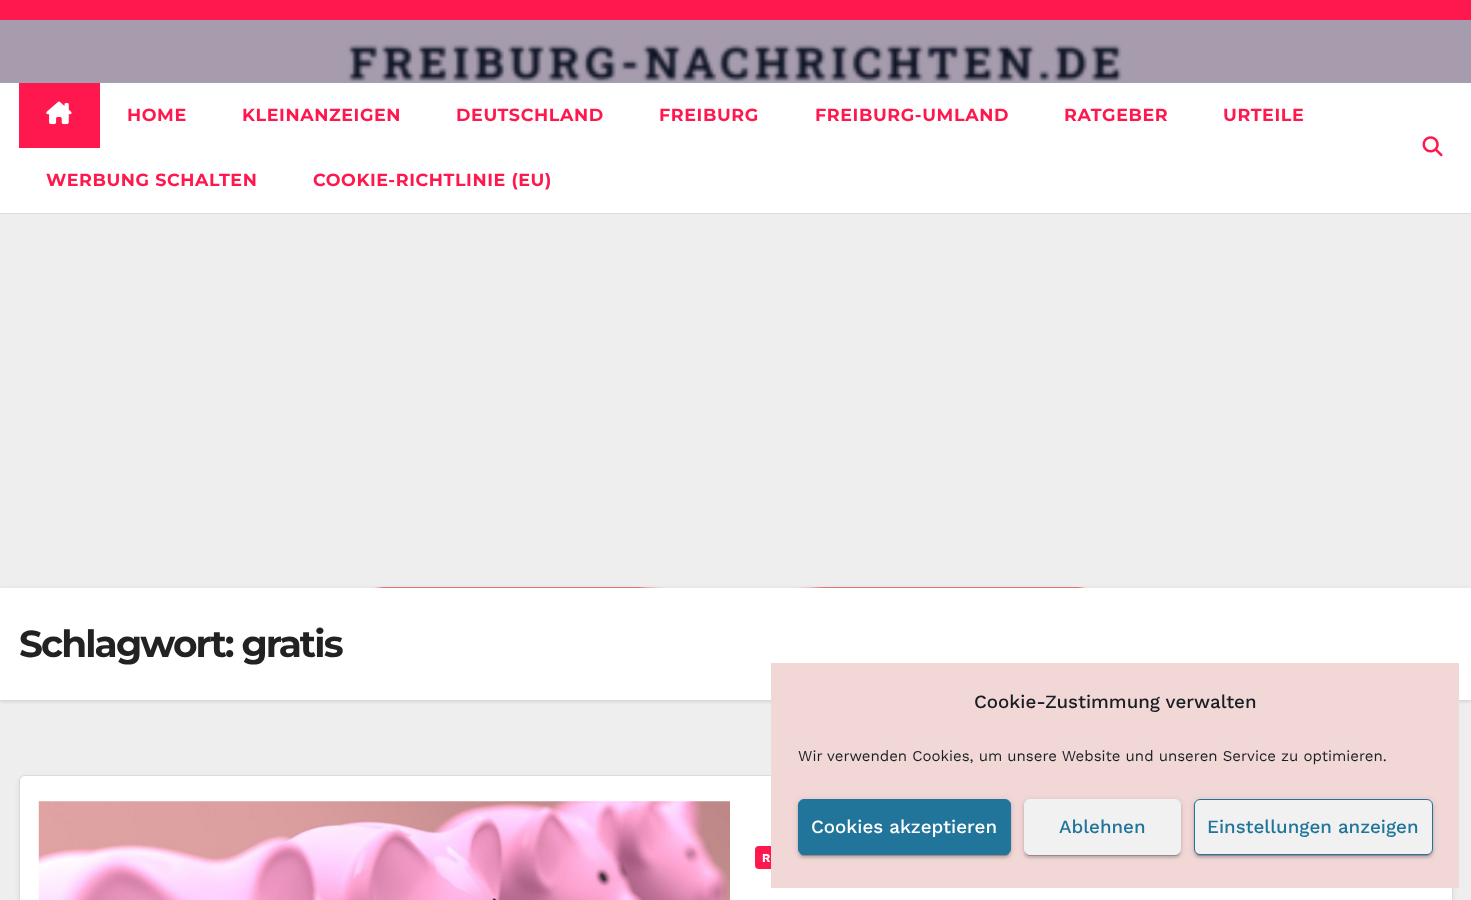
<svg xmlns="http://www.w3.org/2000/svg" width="1471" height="900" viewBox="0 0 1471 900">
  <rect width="100%" height="100%" fill="#eee"/>
  <path d="M0 82h1471v1H0z" fill="#9ca2b3"/>
  <path d="M0 0h1471v20H0z" fill="#ff184e"/>
  <image x="0" y="20" width="1471" height="63" href="img/1.png"/>
  <path d="M0 213h1471v1H0z" fill="#ddd"/>
  <path d="M0 83h1471v130H0z" fill="#fff"/>
  <path d="M19 83h81v65H19z" fill="#ff184e"/>
  <image x="46" y="101" width="26" height="24" href="img/2.png"/>
  <image x="1422" y="136" width="21" height="21" href="img/3.png"/>
  <path d="M0 589h1471v112H0z" fill="#00000026" filter="blur(2px)"/>
  <image x="0" y="587" width="1471" height="1" href="img/4.png"/>
  <path d="M0 588h1471v112H0z" fill="#fff"/>
  <rect x="19" y="778" width="1434" height="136" rx="6" fill="#00000014" filter="blur(2.5px)"/>
  <rect x="19.5" y="775.5" width="1433" height="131" rx="5.5" fill="#fff" stroke="#dddcdc"/>
  <image x="38" y="801" width="692" height="99" href="img/5.png"/>
  <rect x="755" y="846" width="80" height="23" rx="4" fill="#ff184e"/>
  <path d="M771 663h688v225H771z" fill="#f2d7d7"/>
  <rect x="798" y="800" width="213" height="56" rx="6" fill="#0000001f" filter="blur(3px)"/>
  <rect x="800" y="805" width="209" height="51" rx="4" fill="#00000033" filter="blur(0.5px)"/>
  <rect x="798" y="801" width="213" height="57" rx="6" fill="#00000024" filter="blur(1px)"/>
  <rect x="798.5" y="799.5" width="212" height="55" rx="5.5" fill="#21759b" stroke="#21759b"/>
  <rect x="1024" y="800" width="157" height="56" rx="6" fill="#0000001f" filter="blur(3px)"/>
  <rect x="1026" y="805" width="153" height="51" rx="4" fill="#00000033" filter="blur(0.5px)"/>
  <rect x="1024" y="801" width="157" height="57" rx="6" fill="#00000024" filter="blur(1px)"/>
  <rect x="1024.5" y="799.5" width="156" height="55" rx="5.5" fill="#f1f1f1" stroke="#f1f1f1"/>
  <rect x="1194" y="800" width="239" height="56" rx="6" fill="#0000001f" filter="blur(3px)"/>
  <rect x="1196" y="805" width="234" height="51" rx="4" fill="#00000033" filter="blur(0.5px)"/>
  <rect x="1194" y="801" width="239" height="57" rx="6" fill="#00000024" filter="blur(1px)"/>
  <rect x="1194.5" y="799.5" width="238" height="55" rx="5.5" fill="#f1f1f1" stroke="#21759b"/>
  <g font-family="Montserrat" font-size="17.5" font-weight="bold" letter-spacing="0.6" fill="#ff184e">
    <text x="127" y="121">HOME</text>
    <text x="242" y="121">KLEINANZEIGEN</text>
    <text x="456" y="121">DEUTSCHLAND</text>
    <text x="659" y="121">FREIBURG</text>
    <text x="815" y="121">FREIBURG-UMLAND</text>
    <text x="1064" y="121">RATGEBER</text>
    <text x="1223" y="121">URTEILE</text>
    <text x="46" y="186">WERBUNG SCHALTEN</text>
    <text x="313" y="186">COOKIE-RICHTLINIE (EU)</text>
  </g>
  <text x="19" y="657" font-family="Montserrat" font-size="37.5" font-weight="bold" letter-spacing="-1.9" fill="#222">Schlagwort: gratis</text>
  <text x="762" y="862" font-family="Work Sans" font-size="12" font-weight="bold" fill="#fff">R</text>
  <text x="974" y="708" font-family="Work Sans" font-size="18.75" font-weight="500" fill="#191e23">Cookie-Zustimmung verwalten</text>
  <text x="798" y="761" font-family="Work Sans" font-size="15" fill="#191e23">Wir verwenden Cookies, um unsere Website und unseren Service zu optimieren.</text>
  <text x="811" y="833" font-family="Work Sans" font-size="18.75" font-weight="500" fill="#fff">Cookies akzeptieren</text>
  <g font-family="Work Sans" font-size="18.75" font-weight="500" fill="#21759b">
    <text x="1059" y="833">Ablehnen</text>
    <text x="1207" y="833">Einstellungen anzeigen</text>
  </g>
</svg>
